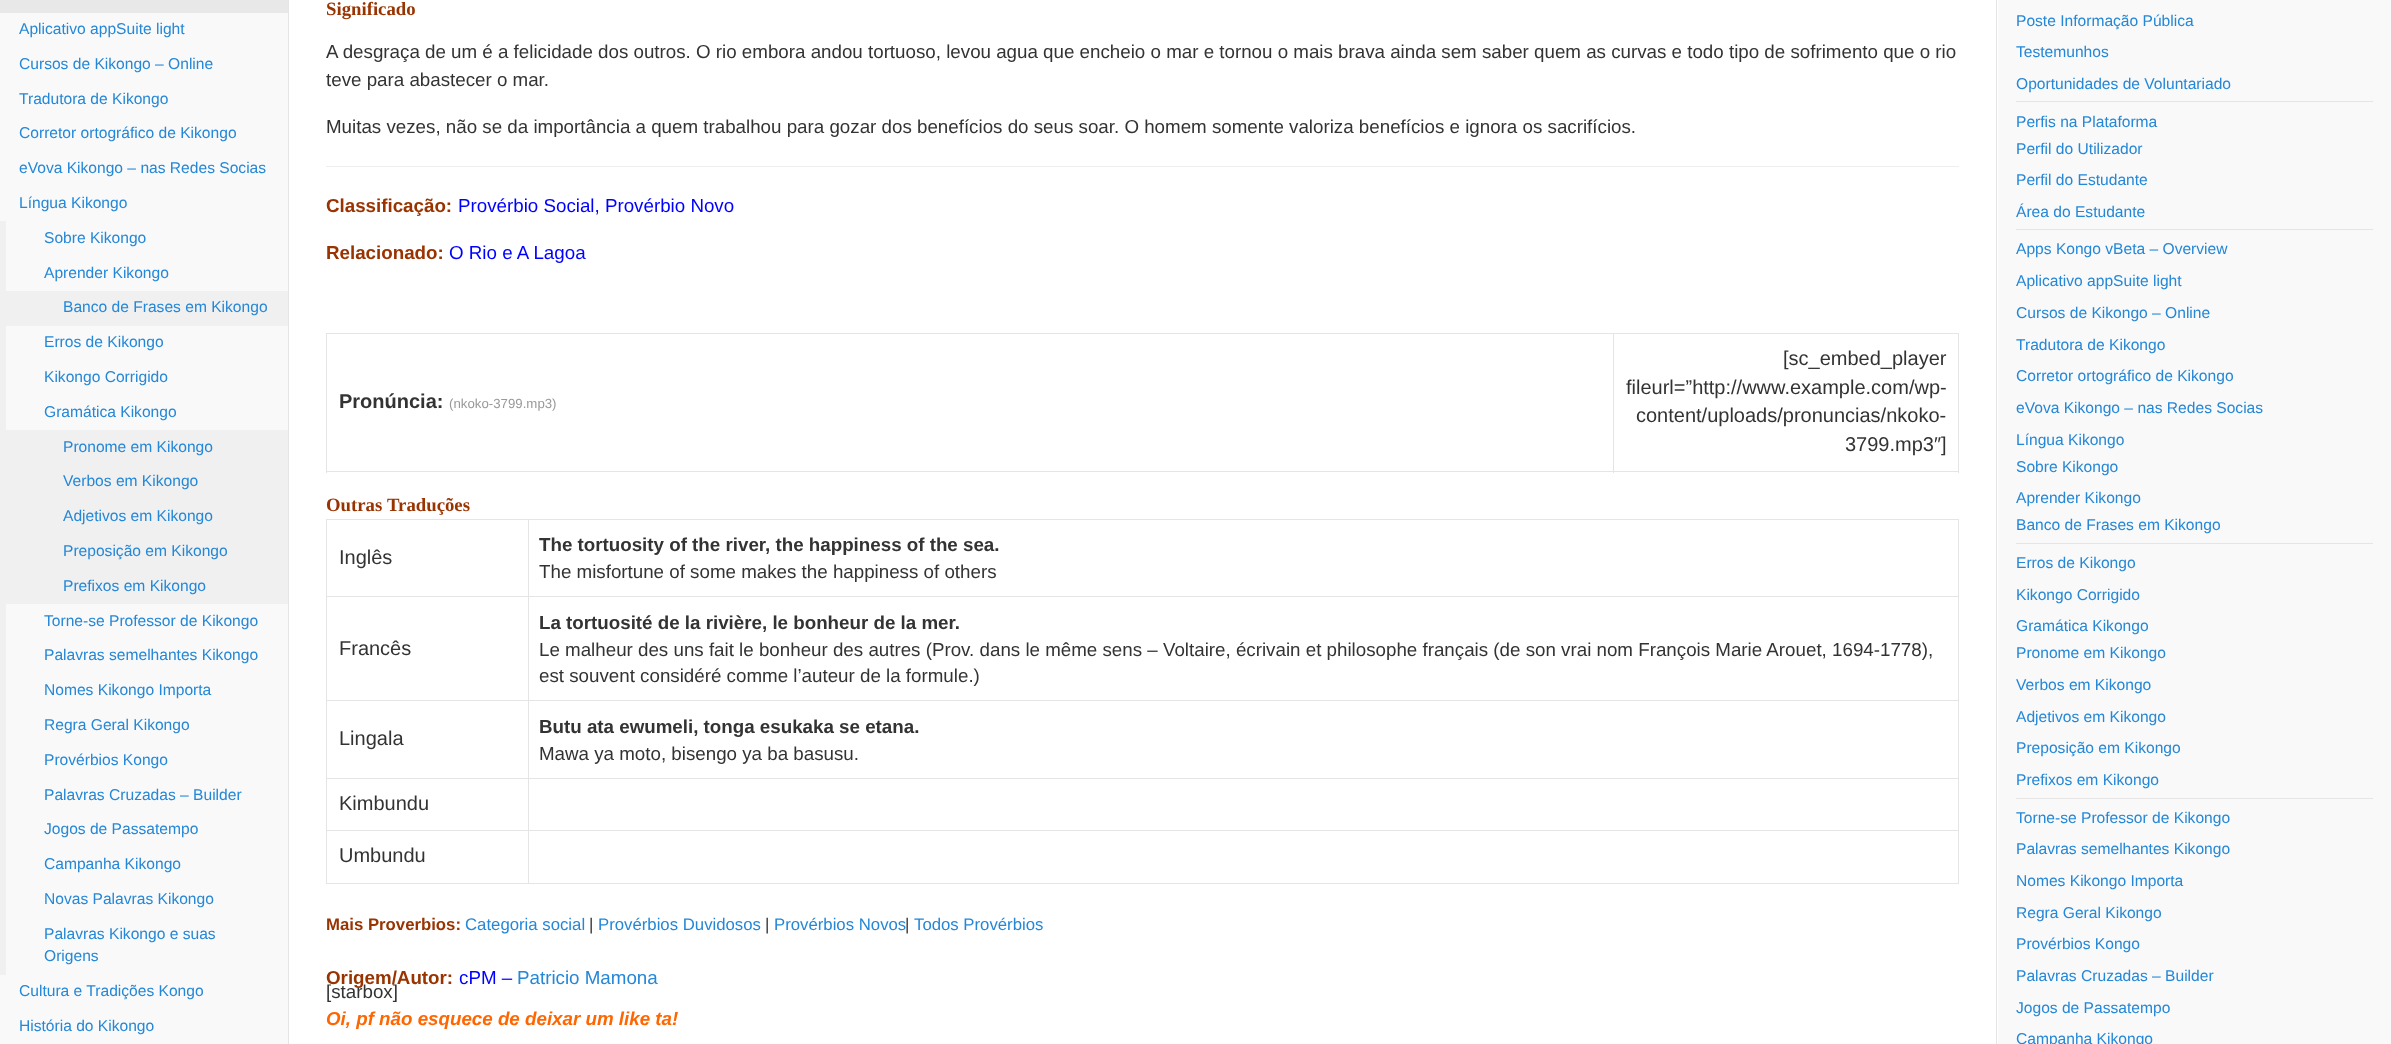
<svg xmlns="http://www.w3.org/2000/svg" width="2391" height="1044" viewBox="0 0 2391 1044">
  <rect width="100%" height="100%" fill="#f9f9f9"/>
  <path d="M0 0h288v13H0z" fill="#e8e8e8"/>
  <path d="M0 221h6v70H0z" fill="#f0f0f0"/>
  <path d="M0 291h288v35H0z" fill="#f0f0f0"/>
  <path d="M0 326h6v104H0z" fill="#f0f0f0"/>
  <path d="M0 430h288v174H0z" fill="#f0f0f0"/>
  <path d="M0 604h6v371H0z" fill="#f0f0f0"/>
  <path d="M289 0h1709v1044H289z" fill="#fff"/>
  <path d="M1996 0h1v1044H1996z" fill="#e5e5e5"/>
  <path d="M288 0h1v1044H288z" fill="#e5e5e5"/>
  <path d="M326 166h1633v1H326z" fill="#eee"/>
  <path d="M1613 333h346v1H1613z" fill="#e5e5e5"/>
  <path d="M1958 333h1v140H1958z" fill="#e5e5e5"/>
  <path d="M1613 471h346v1H1613z" fill="#e5e5e5"/>
  <path d="M1613 333h1v140H1613z" fill="#e5e5e5"/>
  <path d="M326 333h1288v1H326z" fill="#e5e5e5"/>
  <path d="M326 471h1288v1H326z" fill="#e5e5e5"/>
  <path d="M326 333h1v140H326z" fill="#e5e5e5"/>
  <path d="M528 519h1431v1H528z" fill="#e5e5e5"/>
  <path d="M528 596h1431v1H528z" fill="#e5e5e5"/>
  <path d="M528 700h1431v1H528z" fill="#e5e5e5"/>
  <path d="M528 778h1431v1H528z" fill="#e5e5e5"/>
  <path d="M528 830h1431v1H528z" fill="#e5e5e5"/>
  <path d="M1958 830h1v54H1958z" fill="#e5e5e5"/>
  <path d="M528 883h1431v1H528z" fill="#e5e5e5"/>
  <path d="M528 830h1v54H528z" fill="#e5e5e5"/>
  <path d="M326 830h203v1H326z" fill="#e5e5e5"/>
  <path d="M528 778h1v53H528z" fill="#e5e5e5"/>
  <path d="M326 778h203v1H326z" fill="#e5e5e5"/>
  <path d="M528 700h1v79H528z" fill="#e5e5e5"/>
  <path d="M326 700h203v1H326z" fill="#e5e5e5"/>
  <path d="M528 596h1v105H528z" fill="#e5e5e5"/>
  <path d="M326 596h203v1H326z" fill="#e5e5e5"/>
  <path d="M528 519h1v79H528z" fill="#e5e5e5"/>
  <path d="M326 519h203v1H326z" fill="#e5e5e5"/>
  <path d="M326 883h203v1H326z" fill="#e5e5e5"/>
  <path d="M326 830h1v54H326z" fill="#e5e5e5"/>
  <path d="M326 778h1v53H326z" fill="#e5e5e5"/>
  <path d="M326 700h1v79H326z" fill="#e5e5e5"/>
  <path d="M326 596h1v105H326z" fill="#e5e5e5"/>
  <path d="M326 519h1v79H326z" fill="#e5e5e5"/>
  <path d="M1958 778h1v53H1958z" fill="#e5e5e5"/>
  <path d="M1958 700h1v79H1958z" fill="#e5e5e5"/>
  <path d="M1958 596h1v105H1958z" fill="#e5e5e5"/>
  <path d="M1958 519h1v79H1958z" fill="#e5e5e5"/>
  <path d="M2016 101h357v1H2016z" fill="#e5e5e5"/>
  <path d="M2016 229h357v1H2016z" fill="#e5e5e5"/>
  <path d="M2016 543h357v1H2016z" fill="#e5e5e5"/>
  <path d="M2016 798h357v1H2016z" fill="#e5e5e5"/>
  <g font-family="Liberation Sans" font-size="15.6" fill="#2487d7">
    <text x="19" y="34">Aplicativo appSuite light</text>
    <text x="19" y="69">Cursos de Kikongo – Online</text>
    <text x="19" y="104">Tradutora de Kikongo</text>
    <text x="19" y="138">Corretor ortográfico de Kikongo</text>
    <text x="19" y="173">eVova Kikongo – nas Redes Socias</text>
    <text x="19" y="208">Língua Kikongo</text>
    <text x="44" y="243">Sobre Kikongo</text>
    <text x="44" y="278">Aprender Kikongo</text>
    <text x="63" y="312">Banco de Frases em Kikongo</text>
    <text x="44" y="347">Erros de Kikongo</text>
    <text x="44" y="382">Kikongo Corrigido</text>
    <text x="44" y="417">Gramática Kikongo</text>
    <text x="63" y="452">Pronome em Kikongo</text>
    <text x="63" y="486">Verbos em Kikongo</text>
    <text x="63" y="521">Adjetivos em Kikongo</text>
    <text x="63" y="556">Preposição em Kikongo</text>
    <text x="63" y="591">Prefixos em Kikongo</text>
    <text x="44" y="626">Torne-se Professor de Kikongo</text>
    <text x="44" y="660">Palavras semelhantes Kikongo</text>
    <text x="44" y="695">Nomes Kikongo Importa</text>
    <text x="44" y="730">Regra Geral Kikongo</text>
    <text x="44" y="765">Provérbios Kongo</text>
    <text x="44" y="800">Palavras Cruzadas – Builder</text>
    <text x="44" y="834">Jogos de Passatempo</text>
    <text x="44" y="869">Campanha Kikongo</text>
    <text x="44" y="904">Novas Palavras Kikongo</text>
    <text x="44" y="939">Palavras Kikongo e suas</text>
    <text x="44" y="961">Origens</text>
    <text x="19" y="996">Cultura e Tradições Kongo</text>
    <text x="19" y="1031">História do Kikongo</text>
  </g>
  <text x="326" y="15" font-family="Liberation Serif" font-size="18.75" font-weight="bold" fill="#930">Significado</text>
  <g font-family="Liberation Sans" font-size="18.75" fill="#333">
    <text x="326" y="58">A desgraça de um é a felicidade dos outros. O rio embora andou tortuoso, levou agua que encheio o mar e tornou o mais brava ainda sem saber quem as curvas e todo tipo de sofrimento que o rio</text>
    <text x="326" y="86">teve para abastecer o mar.</text>
    <text x="326" y="133">Muitas vezes, não se da importância a quem trabalhou para gozar dos benefícios do seus soar. O homem somente valoriza benefícios e ignora os sacrifícios.</text>
  </g>
  <text x="326" y="212" font-family="Liberation Sans" font-size="18.75" font-weight="bold" fill="#930">Classificação:</text>
  <text x="458" y="212" font-family="Liberation Sans" font-size="18.75" fill="#00f">Provérbio Social, Provérbio Novo</text>
  <text x="326" y="259" font-family="Liberation Sans" font-size="18.75" font-weight="bold" fill="#930">Relacionado:</text>
  <text x="449" y="259" font-family="Liberation Sans" font-size="18.75" fill="#00f">O Rio e A Lagoa</text>
  <text x="339" y="408" font-family="Liberation Sans" font-size="20" font-weight="bold" fill="#333">Pronúncia:</text>
  <text x="449" y="408" font-family="Liberation Sans" font-size="13.25" fill="#999">(nkoko-3799.mp3)</text>
  <g font-family="Liberation Sans" font-size="20" fill="#333">
    <text x="1783" y="365">[sc_embed_player</text>
    <text x="1626" y="394">fileurl=”http://www.example.com/wp-</text>
    <text x="1636" y="422">content/uploads/pronuncias/nkoko-</text>
    <text x="1845" y="451">3799.mp3″]</text>
  </g>
  <g font-family="Liberation Serif" font-size="18.75" font-weight="bold" fill="#930">
    <text x="326" y="511">Outras</text>
    <text x="387" y="511">Traduções</text>
  </g>
  <text x="339" y="564" font-family="Liberation Sans" font-size="20" fill="#333">Inglês</text>
  <text x="539" y="551" font-family="Liberation Sans" font-size="18.75" font-weight="bold" fill="#333">The tortuosity of the river, the happiness of the sea.</text>
  <text x="539" y="578" font-family="Liberation Sans" font-size="18.75" fill="#333">The misfortune of some makes the happiness of others</text>
  <text x="339" y="655" font-family="Liberation Sans" font-size="20" fill="#333">Francês</text>
  <text x="539" y="629" font-family="Liberation Sans" font-size="18.75" font-weight="bold" fill="#333">La tortuosité de la rivière, le bonheur de la mer.</text>
  <g font-family="Liberation Sans" font-size="18.75" fill="#333">
    <text x="539" y="656">Le malheur des uns fait le bonheur des autres (Prov. dans le même sens – Voltaire, écrivain et philosophe français (de son vrai nom François Marie Arouet, 1694-1778),</text>
    <text x="539" y="682">est souvent considéré comme l’auteur de la formule.)</text>
  </g>
  <text x="339" y="745" font-family="Liberation Sans" font-size="20" fill="#333">Lingala</text>
  <text x="539" y="733" font-family="Liberation Sans" font-size="18.75" font-weight="bold" fill="#333">Butu ata ewumeli, tonga esukaka se etana.</text>
  <text x="539" y="760" font-family="Liberation Sans" font-size="18.75" fill="#333">Mawa ya moto, bisengo ya ba basusu.</text>
  <g font-family="Liberation Sans" font-size="20" fill="#333">
    <text x="339" y="810">Kimbundu</text>
    <text x="339" y="862">Umbundu</text>
  </g>
  <text x="326" y="930" font-family="Liberation Sans" font-size="16.75" font-weight="bold" fill="#930">Mais Proverbios:</text>
  <text x="465" y="930" font-family="Liberation Sans" font-size="16.75" fill="#2487d7">Categoria social</text>
  <text x="589" y="930" font-family="Liberation Sans" font-size="16.75" fill="#333">|</text>
  <text x="598" y="930" font-family="Liberation Sans" font-size="16.75" fill="#2487d7">Provérbios Duvidosos</text>
  <text x="765" y="930" font-family="Liberation Sans" font-size="16.75" fill="#333">|</text>
  <text x="774" y="930" font-family="Liberation Sans" font-size="16.75" fill="#2487d7">Provérbios Novos</text>
  <text x="905" y="930" font-family="Liberation Sans" font-size="16.75" fill="#333">|</text>
  <text x="914" y="930" font-family="Liberation Sans" font-size="16.75" fill="#2487d7">Todos Provérbios</text>
  <text x="326" y="984" font-family="Liberation Sans" font-size="18.75" font-weight="bold" fill="#930">Origem/Autor:</text>
  <text x="459" y="984" font-family="Liberation Sans" font-size="18.75" fill="#00f">cPM –</text>
  <text x="517" y="984" font-family="Liberation Sans" font-size="18.75" fill="#2487d7">Patricio Mamona</text>
  <text x="326" y="998" font-family="Liberation Sans" font-size="18.75" fill="#333">[starbox]</text>
  <text x="326" y="1025" font-family="Liberation Sans" font-size="18.75" font-weight="bold" font-style="italic" fill="#f60">Oi, pf não esquece de deixar um like ta!</text>
  <g font-family="Liberation Sans" font-size="15.6" fill="#2487d7">
    <text x="2016" y="26">Poste Informação Pública</text>
    <text x="2016" y="57">Testemunhos</text>
    <text x="2016" y="89">Oportunidades de Voluntariado</text>
    <text x="2016" y="127">Perfis na Plataforma</text>
    <text x="2016" y="154">Perfil do Utilizador</text>
    <text x="2016" y="185">Perfil do Estudante</text>
    <text x="2016" y="217">Área do Estudante</text>
    <text x="2016" y="254">Apps Kongo vBeta – Overview</text>
    <text x="2016" y="286">Aplicativo appSuite light</text>
    <text x="2016" y="318">Cursos de Kikongo – Online</text>
    <text x="2016" y="350">Tradutora de Kikongo</text>
    <text x="2016" y="381">Corretor ortográfico de Kikongo</text>
    <text x="2016" y="413">eVova Kikongo – nas Redes Socias</text>
    <text x="2016" y="445">Língua Kikongo</text>
    <text x="2016" y="472">Sobre Kikongo</text>
    <text x="2016" y="503">Aprender Kikongo</text>
    <text x="2016" y="530">Banco de Frases em Kikongo</text>
    <text x="2016" y="568">Erros de Kikongo</text>
    <text x="2016" y="600">Kikongo Corrigido</text>
    <text x="2016" y="631">Gramática Kikongo</text>
    <text x="2016" y="658">Pronome em Kikongo</text>
    <text x="2016" y="690">Verbos em Kikongo</text>
    <text x="2016" y="722">Adjetivos em Kikongo</text>
    <text x="2016" y="753">Preposição em Kikongo</text>
    <text x="2016" y="785">Prefixos em Kikongo</text>
    <text x="2016" y="823">Torne-se Professor de Kikongo</text>
    <text x="2016" y="854">Palavras semelhantes Kikongo</text>
    <text x="2016" y="886">Nomes Kikongo Importa</text>
    <text x="2016" y="918">Regra Geral Kikongo</text>
    <text x="2016" y="949">Provérbios Kongo</text>
    <text x="2016" y="981">Palavras Cruzadas – Builder</text>
    <text x="2016" y="1013">Jogos de Passatempo</text>
    <text x="2016" y="1044">Campanha Kikongo</text>
  </g>
</svg>
